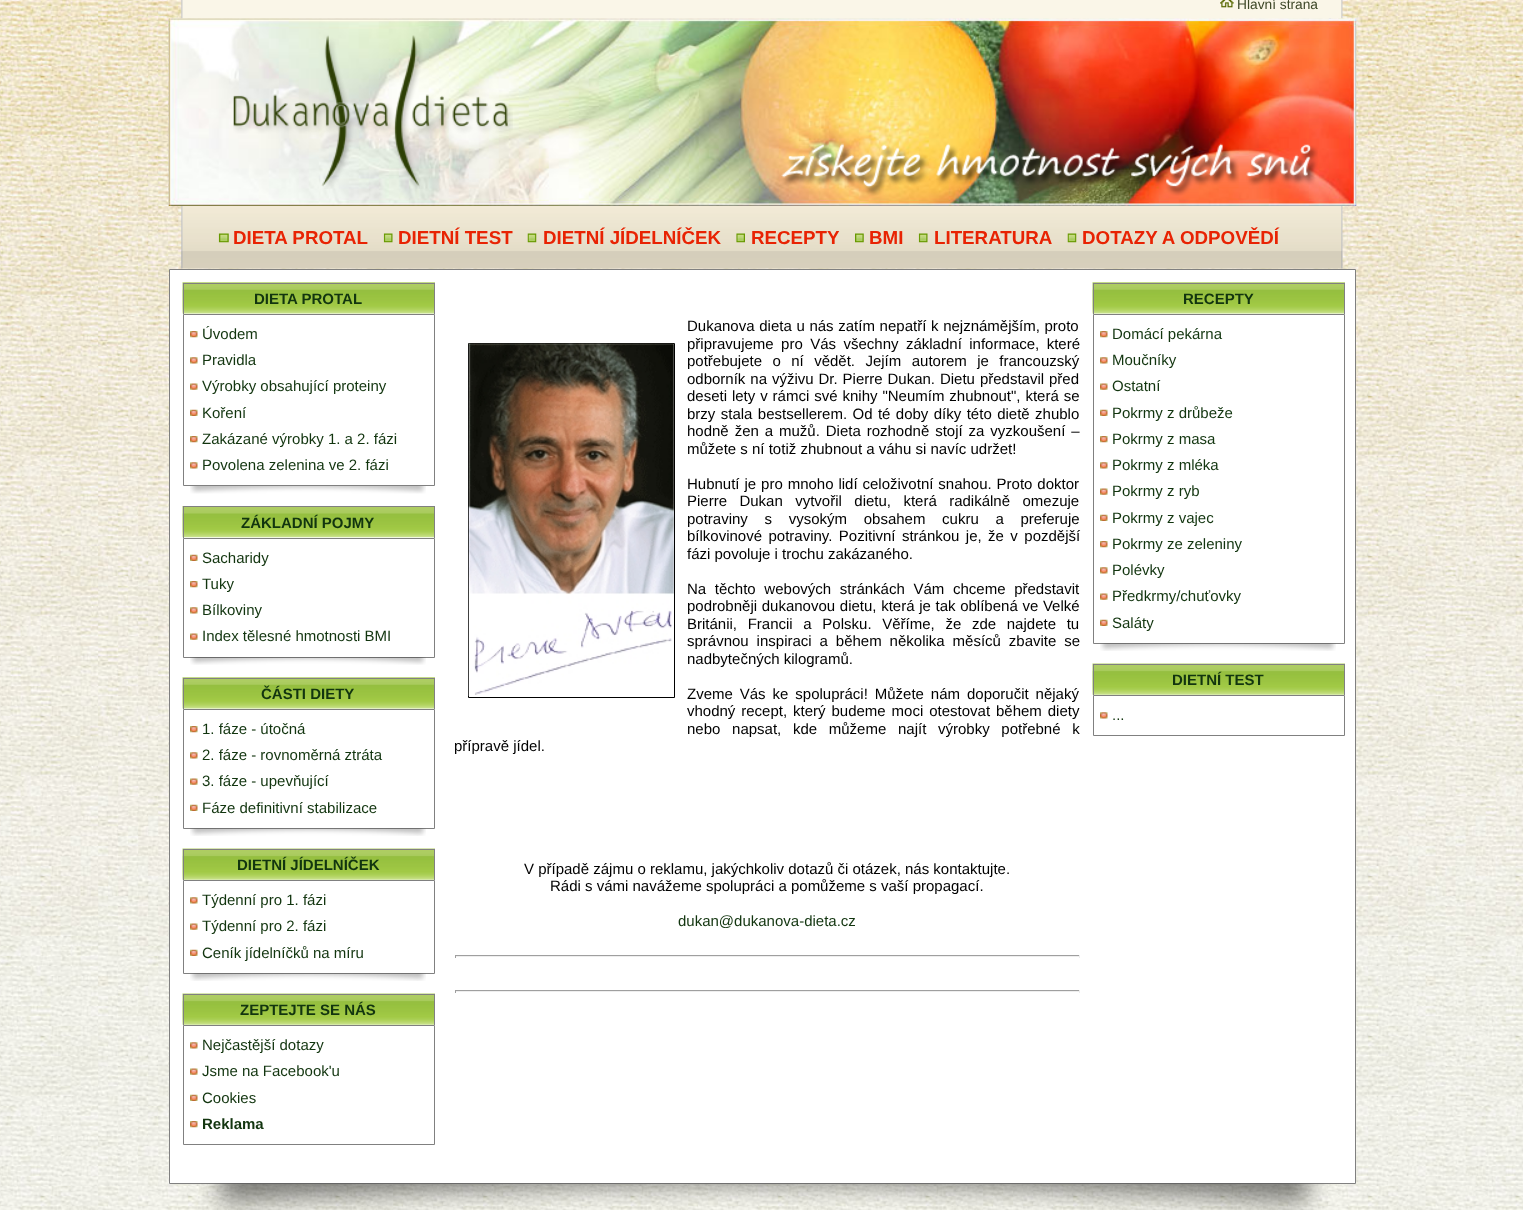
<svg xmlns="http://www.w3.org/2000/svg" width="1523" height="1210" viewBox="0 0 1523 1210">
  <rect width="100%" height="100%" fill="#fff"/>
  <image x="0" y="0" width="1523" height="1210" href="img/1.png"/>
  <image x="181" y="0" width="1162" height="19" href="img/2.png"/>
  <image x="1220" y="0" width="14" height="8" href="img/3.png"/>
  <image x="168" y="18" width="1164" height="188" href="img/4.png"/>
  <image x="168" y="18" width="1189" height="188" href="img/5.png"/>
  <image x="233" y="35" width="280" height="154" href="img/6.png"/>
  <image x="781" y="143" width="537" height="53" href="img/7.png"/>
  <image x="181" y="206" width="1162" height="63" href="img/8.png"/>
  <image x="218" y="233" width="11" height="10" href="img/9.png"/>
  <image x="383" y="233" width="10" height="10" href="img/10.png"/>
  <image x="527" y="233" width="10" height="10" href="img/11.png"/>
  <image x="736" y="233" width="9" height="10" href="img/12.png"/>
  <image x="855" y="233" width="9" height="10" href="img/13.png"/>
  <image x="918" y="233" width="10" height="10" href="img/10.png"/>
  <image x="1067" y="233" width="10" height="10" href="img/11.png"/>
  <path d="M169.5 269.5h1186v914H169.5z" fill="#fff" stroke="#808080"/>
  <image x="182" y="282" width="253" height="32" href="img/14.png"/>
  <path d="M183 283h252v1H183z" fill="#808080"/>
  <path d="M434 283h1v31H434z" fill="#808080"/>
  <path d="M183 283h1v31H183z" fill="#808080"/>
  <path d="M183.5 314.5h251v171H183.5z" fill="none" stroke="#808080"/>
  <image x="190" y="331" width="8" height="7" href="img/15.png"/>
  <image x="190" y="357" width="8" height="7" href="img/16.png"/>
  <image x="190" y="383" width="8" height="7" href="img/17.png"/>
  <image x="190" y="409" width="8" height="7" href="img/18.png"/>
  <image x="190" y="436" width="8" height="7" href="img/15.png"/>
  <image x="190" y="462" width="8" height="7" href="img/16.png"/>
  <image x="190" y="486" width="236" height="8" href="img/19.png"/>
  <image x="182" y="506" width="252" height="32" href="img/20.png"/>
  <path d="M183 506h252v1H183z" fill="#808080"/>
  <path d="M434 506h1v32H434z" fill="#808080"/>
  <path d="M183 506h1v32H183z" fill="#808080"/>
  <path d="M183.5 538.5h251v119H183.5z" fill="none" stroke="#808080"/>
  <image x="190" y="554" width="8" height="7" href="img/18.png"/>
  <image x="190" y="581" width="8" height="7" href="img/15.png"/>
  <image x="190" y="607" width="8" height="7" href="img/16.png"/>
  <image x="190" y="633" width="8" height="7" href="img/17.png"/>
  <image x="190" y="657" width="236" height="8" href="img/21.png"/>
  <image x="182" y="677" width="253" height="32" href="img/14.png"/>
  <path d="M183 678h252v1H183z" fill="#808080"/>
  <path d="M434 678h1v31H434z" fill="#808080"/>
  <path d="M183 678h1v31H183z" fill="#808080"/>
  <path d="M183.5 709.5h251v119H183.5z" fill="none" stroke="#808080"/>
  <image x="190" y="726" width="8" height="7" href="img/15.png"/>
  <image x="190" y="752" width="8" height="7" href="img/16.png"/>
  <image x="190" y="778" width="8" height="7" href="img/17.png"/>
  <image x="190" y="804" width="8" height="7" href="img/18.png"/>
  <image x="190" y="828" width="236" height="8" href="img/22.png"/>
  <image x="182" y="848" width="253" height="32" href="img/23.png"/>
  <path d="M183 849h252v1H183z" fill="#808080"/>
  <path d="M434 849h1v31H434z" fill="#808080"/>
  <path d="M183 849h1v31H183z" fill="#808080"/>
  <path d="M183.5 880.5h251v93H183.5z" fill="none" stroke="#808080"/>
  <image x="190" y="897" width="8" height="7" href="img/16.png"/>
  <image x="190" y="923" width="8" height="7" href="img/17.png"/>
  <image x="190" y="949" width="8" height="7" href="img/18.png"/>
  <image x="190" y="973" width="236" height="8" href="img/22.png"/>
  <image x="182" y="993" width="253" height="32" href="img/23.png"/>
  <path d="M183 994h252v1H183z" fill="#808080"/>
  <path d="M434 994h1v31H434z" fill="#808080"/>
  <path d="M183 994h1v31H183z" fill="#808080"/>
  <path d="M183.5 1025.5h251v119H183.5z" fill="none" stroke="#808080"/>
  <image x="190" y="1042" width="8" height="7" href="img/16.png"/>
  <image x="190" y="1068" width="8" height="7" href="img/17.png"/>
  <image x="190" y="1094" width="8" height="7" href="img/18.png"/>
  <image x="190" y="1121" width="8" height="7" href="img/15.png"/>
  <path d="M468.5 343.5h206v354H468.5z" fill="none" stroke="#000"/>
  <image x="468" y="343" width="206" height="353" href="img/24.png"/>
  <path d="M455 955h625v1H455z" fill="#9f9f9f"/>
  <path d="M1079 955h1v3H1079z" fill="#eee"/>
  <path d="M455 956h625v1H455z" fill="#eee"/>
  <path d="M455 955h1v3H455z" fill="#9f9f9f"/>
  <path d="M455 990h625v1H455z" fill="#9f9f9f"/>
  <path d="M1079 990h1v3H1079z" fill="#eee"/>
  <path d="M455 991h625v1H455z" fill="#eee"/>
  <path d="M455 990h1v3H455z" fill="#9f9f9f"/>
  <image x="1092" y="282" width="253" height="32" href="img/14.png"/>
  <path d="M1093 283h252v1H1093z" fill="#808080"/>
  <path d="M1344 283h1v31H1344z" fill="#808080"/>
  <path d="M1093 283h1v31H1093z" fill="#808080"/>
  <path d="M1093.5 314.5h251v329H1093.5z" fill="none" stroke="#808080"/>
  <image x="1100" y="331" width="8" height="7" href="img/25.png"/>
  <image x="1100" y="357" width="8" height="7" href="img/26.png"/>
  <image x="1100" y="383" width="8" height="7" href="img/27.png"/>
  <image x="1100" y="409" width="8" height="7" href="img/28.png"/>
  <image x="1100" y="436" width="8" height="7" href="img/25.png"/>
  <image x="1100" y="462" width="8" height="7" href="img/26.png"/>
  <image x="1100" y="488" width="8" height="7" href="img/29.png"/>
  <image x="1100" y="514" width="8" height="7" href="img/28.png"/>
  <image x="1100" y="541" width="8" height="7" href="img/25.png"/>
  <image x="1100" y="567" width="8" height="7" href="img/26.png"/>
  <image x="1100" y="593" width="8" height="7" href="img/27.png"/>
  <image x="1100" y="619" width="8" height="7" href="img/28.png"/>
  <image x="1100" y="643" width="236" height="8" href="img/30.png"/>
  <image x="1092" y="663" width="253" height="32" href="img/23.png"/>
  <path d="M1093 664h252v1H1093z" fill="#808080"/>
  <path d="M1344 664h1v31H1344z" fill="#808080"/>
  <path d="M1093 664h1v31H1093z" fill="#808080"/>
  <path d="M1093.5 695.5h251v40H1093.5z" fill="none" stroke="#808080"/>
  <image x="1100" y="712" width="8" height="7" href="img/26.png"/>
  <image x="201" y="1183" width="1127" height="27" href="img/31.png"/>
  <text x="1237" y="9" font-family="Liberation Sans" font-size="13.75" fill="#3d4727">Hlavní strana</text>
  <g font-family="Liberation Sans" font-size="18.75" font-weight="bold" fill="#e82303">
    <text x="233" y="244">DIETA PROTAL</text>
    <text x="398" y="244">DIETNÍ TEST</text>
    <text x="543" y="244">DIETNÍ JÍDELNÍČEK</text>
    <text x="751" y="244">RECEPTY</text>
    <text x="869" y="244">BMI</text>
    <text x="934" y="244">LITERATURA</text>
    <text x="1082" y="244">DOTAZY A ODPOVĚDÍ</text>
  </g>
  <text x="254" y="304" font-family="Liberation Sans" font-size="15" font-weight="bold" fill="#12350f">DIETA PROTAL</text>
  <g font-family="Liberation Sans" font-size="15" fill="#12350f">
    <text x="202" y="339">Úvodem</text>
    <text x="202" y="365">Pravidla</text>
    <text x="202" y="391">Výrobky obsahující proteiny</text>
    <text x="202" y="418">Koření</text>
    <text x="202" y="444">Zakázané výrobky 1. a 2. fázi</text>
    <text x="202" y="470">Povolena zelenina ve 2. fázi</text>
  </g>
  <text x="241" y="528" font-family="Liberation Sans" font-size="15" font-weight="bold" fill="#12350f">ZÁKLADNÍ POJMY</text>
  <g font-family="Liberation Sans" font-size="15" fill="#12350f">
    <text x="202" y="563">Sacharidy</text>
    <text x="202" y="589">Tuky</text>
    <text x="202" y="615">Bílkoviny</text>
    <text x="202" y="641">Index tělesné hmotnosti BMI</text>
  </g>
  <text x="261" y="699" font-family="Liberation Sans" font-size="15" font-weight="bold" fill="#12350f">ČÁSTI DIETY</text>
  <g font-family="Liberation Sans" font-size="15" fill="#12350f">
    <text x="202" y="734">1. fáze - útočná</text>
    <text x="202" y="760">2. fáze - rovnoměrná ztráta</text>
    <text x="202" y="786">3. fáze - upevňující</text>
    <text x="202" y="813">Fáze definitivní stabilizace</text>
  </g>
  <text x="237" y="870" font-family="Liberation Sans" font-size="15" font-weight="bold" fill="#12350f">DIETNÍ JÍDELNÍČEK</text>
  <g font-family="Liberation Sans" font-size="15" fill="#12350f">
    <text x="202" y="905">Týdenní pro 1. fázi</text>
    <text x="202" y="931">Týdenní pro 2. fázi</text>
    <text x="202" y="958">Ceník jídelníčků na míru</text>
  </g>
  <text x="240" y="1015" font-family="Liberation Sans" font-size="15" font-weight="bold" fill="#12350f">ZEPTEJTE SE NÁS</text>
  <g font-family="Liberation Sans" font-size="15" fill="#12350f">
    <text x="202" y="1050">Nejčastější dotazy</text>
    <text x="202" y="1076">Jsme na Facebook'u</text>
    <text x="202" y="1103">Cookies</text>
  </g>
  <text x="202" y="1129" font-family="Liberation Sans" font-size="15" font-weight="bold" fill="#12350f">Reklama</text>
  <g font-family="Liberation Sans" font-size="15" fill="#000">
    <text x="687" y="331" word-spacing="0.5">Dukanova dieta u nás zatím nepatří k nejznámějším, proto</text>
    <text x="687" y="349" word-spacing="3.25">připravujeme pro Vás všechny základní informace, které</text>
    <text x="687" y="366" word-spacing="6.25">potřebujete o ní vědět. Jejím autorem je francouzský</text>
    <text x="687" y="384" word-spacing="0.75">odborník na výživu Dr. Pierre Dukan. Dietu představil před</text>
    <text x="687" y="401" word-spacing="0.75">deseti lety v rámci své knihy "Neumím zhubnout", která se</text>
    <text x="687" y="419" word-spacing="1.25">brzy stala bestsellerem. Od té doby díky této dietě zhublo</text>
    <text x="687" y="436" word-spacing="1.75">hodně žen a mužů. Dieta rozhodně stojí za vyzkoušení –</text>
    <text x="687" y="454">můžete s ní totiž zhubnout a váhu si navíc udržet!</text>
    <text x="687" y="489" word-spacing="0.75">Hubnutí je pro mnoho lidí celoživotní snahou. Proto doktor</text>
    <text x="687" y="506" word-spacing="8.25">Pierre Dukan vytvořil dietu, která radikálně omezuje</text>
    <text x="687" y="524" word-spacing="12.5">potraviny s vysokým obsahem cukru a preferuje</text>
    <text x="687" y="541" word-spacing="2.25">bílkovinové potraviny. Pozitivní stránkou je, že v pozdější</text>
    <text x="687" y="559">fázi povoluje i trochu zakázaného.</text>
    <text x="687" y="594" word-spacing="4.5">Na těchto webových stránkách Vám chceme představit</text>
    <text x="687" y="611" word-spacing="0.5">podrobněji dukanovou dietu, která je tak oblíbená ve Velké</text>
    <text x="687" y="629" word-spacing="6.5">Británii, Francii a Polsku. Věříme, že zde najdete tu</text>
    <text x="687" y="646" word-spacing="3.75">správnou inspiraci a během několika měsíců zbavite se</text>
    <text x="687" y="664">nadbytečných kilogramů.</text>
    <text x="687" y="699" word-spacing="2.75">Zveme Vás ke spolupráci! Můžete nám doporučit nějaký</text>
    <text x="687" y="716" word-spacing="1.75">vhodný recept, který budeme moci otestovat během diety</text>
    <text x="687" y="734" word-spacing="7.5">nebo napsat, kde můžeme najít výrobky potřebné k</text>
    <text x="454" y="751">přípravě jídel.</text>
    <text x="524" y="874">V případě zájmu o reklamu, jakýchkoliv dotazů či otázek, nás kontaktujte.</text>
    <text x="550" y="891">Rádi s vámi navážeme spolupráci a pomůžeme s vaší propagací.</text>
  </g>
  <text x="678" y="926" font-family="Liberation Sans" font-size="15" fill="#12350f">dukan@dukanova-dieta.cz</text>
  <text x="1183" y="304" font-family="Liberation Sans" font-size="15" font-weight="bold" fill="#12350f">RECEPTY</text>
  <g font-family="Liberation Sans" font-size="15" fill="#12350f">
    <text x="1112" y="339">Domácí pekárna</text>
    <text x="1112" y="365">Moučníky</text>
    <text x="1112" y="391">Ostatní</text>
    <text x="1112" y="418">Pokrmy z drůbeže</text>
    <text x="1112" y="444">Pokrmy z masa</text>
    <text x="1112" y="470">Pokrmy z mléka</text>
    <text x="1112" y="496">Pokrmy z ryb</text>
    <text x="1112" y="523">Pokrmy z vajec</text>
    <text x="1112" y="549">Pokrmy ze zeleniny</text>
    <text x="1112" y="575">Polévky</text>
    <text x="1112" y="601">Předkrmy/chuťovky</text>
    <text x="1112" y="628">Saláty</text>
  </g>
  <text x="1172" y="685" font-family="Liberation Sans" font-size="15" font-weight="bold" fill="#12350f">DIETNÍ TEST</text>
  <text x="1112" y="720" font-family="Liberation Sans" font-size="15" fill="#12350f">...</text>
</svg>
